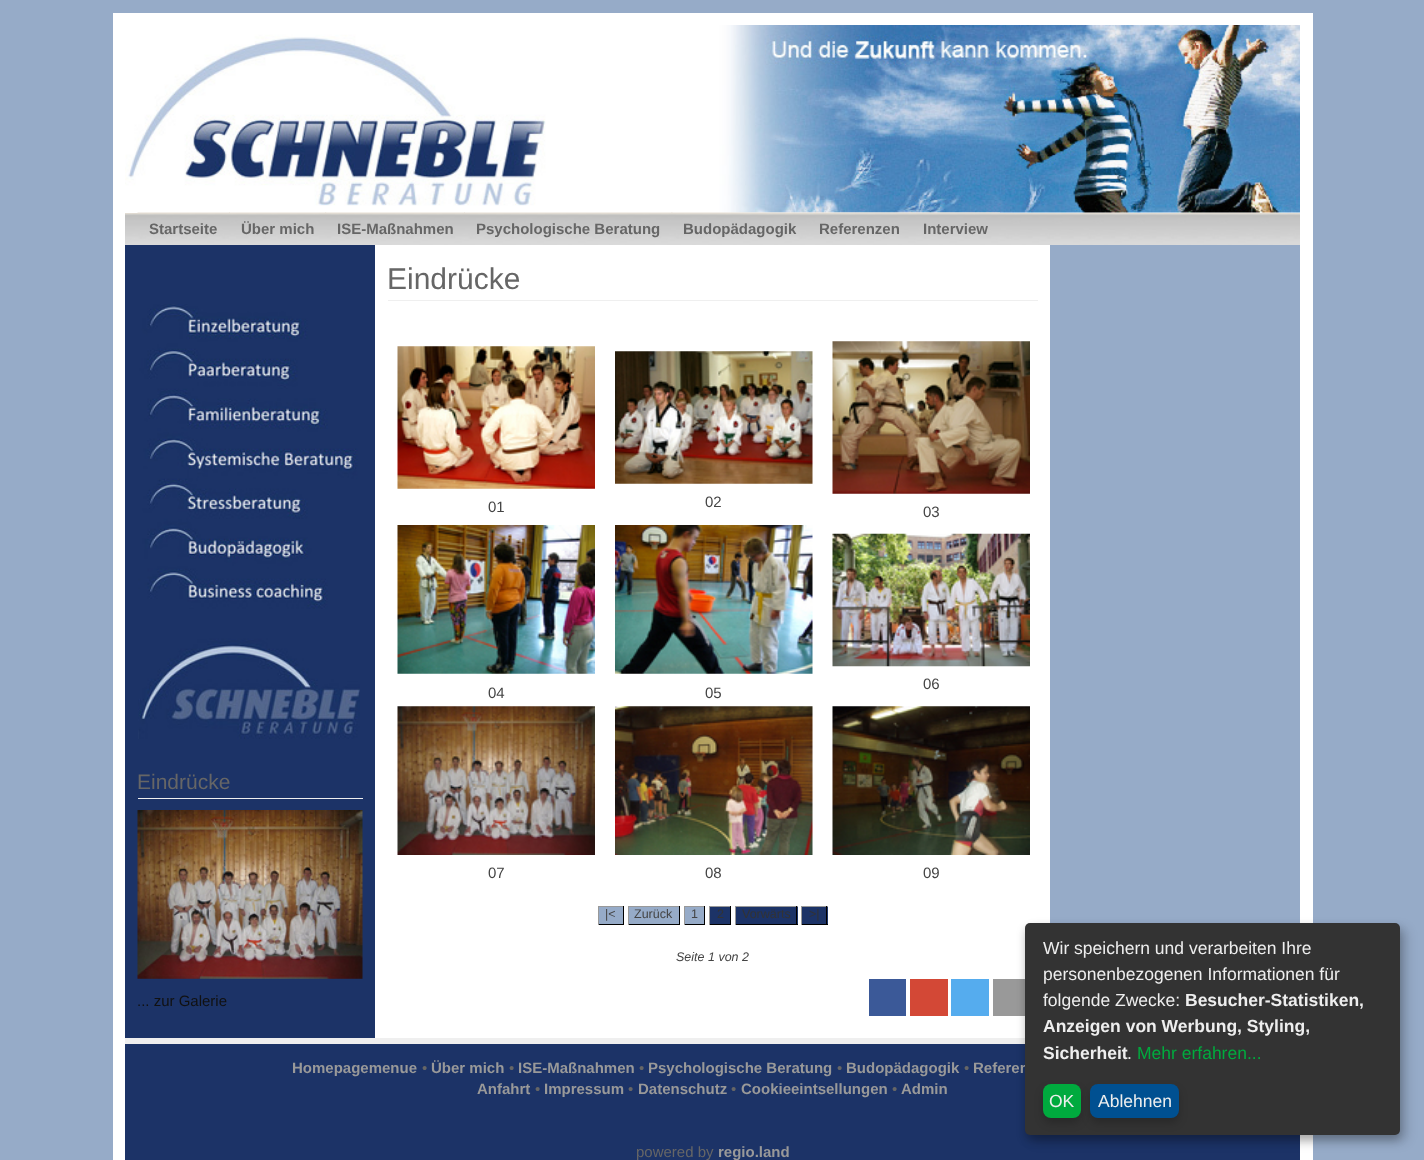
<svg xmlns="http://www.w3.org/2000/svg" width="1424" height="1160" viewBox="0 0 1424 1160">
  <rect width="100%" height="100%" fill="#96abc8"/>
  <path d="M113 13h1200v1147H113z" fill="#fff"/>
  <image x="125" y="25" width="1175" height="188" href="img/1.png"/>
  <image x="125" y="213" width="1175" height="32" href="img/2.png"/>
  <image x="137" y="212" width="93" height="1" href="img/3.png"/>
  <image x="229" y="212" width="98" height="1" href="img/4.png"/>
  <path d="M325 212h140v1H325z" fill="#e7dfd480"/>
  <image x="464" y="212" width="209" height="1" href="img/5.png"/>
  <image x="671" y="212" width="138" height="1" href="img/6.png"/>
  <image x="807" y="212" width="106" height="1" href="img/7.png"/>
  <image x="911" y="212" width="89" height="1" href="img/8.png"/>
  <path d="M125 245h250v793H125z" fill="#1c3367"/>
  <image x="138" y="304" width="222" height="435" href="img/9.png"/>
  <path d="M138 798h225v1H138z" fill="#efefef"/>
  <image x="137" y="810" width="226" height="169" href="img/10.png"/>
  <path d="M1050 245h250v678H1050z" fill="#96abc8"/>
  <path d="M388 300h650v1H388z" fill="#efefef"/>
  <image x="397" y="346" width="198" height="143" href="img/11.png"/>
  <image x="615" y="351" width="198" height="133" href="img/12.png"/>
  <image x="832" y="341" width="198" height="153" href="img/13.png"/>
  <image x="832" y="533" width="198" height="134" href="img/14.png"/>
  <image x="397" y="525" width="198" height="149" href="img/15.png"/>
  <image x="615" y="525" width="198" height="149" href="img/16.png"/>
  <image x="397" y="706" width="198" height="149" href="img/17.png"/>
  <image x="615" y="706" width="198" height="149" href="img/18.png"/>
  <image x="832" y="706" width="198" height="149" href="img/19.png"/>
  <path d="M599 907h24v17H599z" fill="#96abc8"/>
  <path d="M598 906h26v1H598z" fill="#999"/>
  <path d="M623 906h1v19H623z" fill="#000"/>
  <path d="M598 924h26v1H598z" fill="#000"/>
  <path d="M598 906h1v19H598z" fill="#999"/>
  <path d="M629 907h50v17H629z" fill="#96abc8"/>
  <path d="M628 906h52v1H628z" fill="#999"/>
  <path d="M679 906h1v19H679z" fill="#000"/>
  <path d="M628 924h52v1H628z" fill="#000"/>
  <path d="M628 906h1v19H628z" fill="#999"/>
  <path d="M685 907h19v17H685z" fill="#96abc8"/>
  <path d="M684 906h21v1H684z" fill="#999"/>
  <path d="M704 906h1v19H704z" fill="#000"/>
  <path d="M684 924h21v1H684z" fill="#000"/>
  <path d="M684 906h1v19H684z" fill="#999"/>
  <path d="M710 907h20v17H710z" fill="#1c3367"/>
  <path d="M709 906h22v1H709z" fill="#999"/>
  <path d="M730 906h1v19H730z" fill="#000"/>
  <path d="M709 924h22v1H709z" fill="#000"/>
  <path d="M709 906h1v19H709z" fill="#999"/>
  <path d="M736 907h62v17H736z" fill="#1c3367"/>
  <path d="M735 906h63v1H735z" fill="#999"/>
  <path d="M796 906h1v19H796z" fill="#000"/>
  <path d="M735 924h63v1H735z" fill="#000"/>
  <path d="M735 906h1v19H735z" fill="#999"/>
  <path d="M802 907h26v17H802z" fill="#1c3367"/>
  <path d="M801 906h27v1H801z" fill="#999"/>
  <path d="M826 906h1v19H826z" fill="#000"/>
  <path d="M801 924h27v1H801z" fill="#000"/>
  <path d="M801 906h1v19H801z" fill="#999"/>
  <path d="M869 979h37v37H869z" fill="#3b5998"/>
  <path d="M910 979h38v37H910z" fill="#d34836"/>
  <path d="M951 979h38v37H951z" fill="#55acee"/>
  <path d="M993 979h32v37H993z" fill="#999"/>
  <path d="M125 1044h1175v116H125z" fill="#1c3367"/>
  <path d="M125 1038h900v6H125z" fill="#efefef"/>
  <rect x="1031" y="929" width="375" height="212" rx="5" fill="#00000030" filter="blur(6px)"/>
  <rect x="1025" y="928" width="375" height="212" rx="5" fill="#00000033" filter="blur(4px)"/>
  <g font-family="Liberation Sans" font-size="15" font-weight="bold" fill="#666">
    <text x="149" y="234">Startseite</text>
    <text x="241" y="234">Über mich</text>
    <text x="337" y="234">ISE-Maßnahmen</text>
    <text x="476" y="234">Psychologische Beratung</text>
    <text x="683" y="234">Budopädagogik</text>
    <text x="819" y="234">Referenzen</text>
    <text x="923" y="234">Interview</text>
  </g>
  <text x="137" y="789" font-family="Liberation Sans" font-size="21" fill="#666">Eindrücke</text>
  <text x="137" y="1006" font-family="Liberation Sans" font-size="15" fill="#111">... zur Galerie</text>
  <text x="387" y="289" font-family="Liberation Sans" font-size="30" fill="#666">Eindrücke</text>
  <g font-family="Liberation Sans" font-size="15" fill="#444">
    <text x="488" y="512">01</text>
    <text x="705" y="507">02</text>
    <text x="923" y="517">03</text>
    <text x="923" y="689">06</text>
    <text x="488" y="698">04</text>
    <text x="705" y="698">05</text>
    <text x="488" y="878">07</text>
    <text x="705" y="878">08</text>
    <text x="923" y="878">09</text>
  </g>
  <g font-family="Liberation Sans" font-size="12.5" fill="#444">
    <text x="605" y="918">|&lt;</text>
    <text x="634" y="918">Zurück</text>
    <text x="691" y="918">1</text>
  </g>
  <g font-family="Liberation Sans" font-size="12.5" fill="#333">
    <text x="717" y="918">2</text>
    <text x="742" y="918">Vorwärts</text>
    <text x="809" y="918">&gt;|</text>
  </g>
  <text x="676" y="961" font-family="Liberation Sans" font-size="12.5" font-style="italic" fill="#444">Seite 1 von 2</text>
  <text x="292" y="1073" font-family="Liberation Sans" font-size="15" font-weight="bold" fill="#999">Homepagemenue</text>
  <text x="422" y="1073" font-family="Liberation Sans" font-size="15" fill="#666">•</text>
  <text x="431" y="1073" font-family="Liberation Sans" font-size="15" font-weight="bold" fill="#999">Über mich</text>
  <text x="509" y="1073" font-family="Liberation Sans" font-size="15" fill="#666">•</text>
  <text x="518" y="1073" font-family="Liberation Sans" font-size="15" font-weight="bold" fill="#999">ISE-Maßnahmen</text>
  <text x="639" y="1073" font-family="Liberation Sans" font-size="15" fill="#666">•</text>
  <text x="648" y="1073" font-family="Liberation Sans" font-size="15" font-weight="bold" fill="#999">Psychologische Beratung</text>
  <text x="837" y="1073" font-family="Liberation Sans" font-size="15" fill="#666">•</text>
  <text x="846" y="1073" font-family="Liberation Sans" font-size="15" font-weight="bold" fill="#999">Budopädagogik</text>
  <text x="964" y="1073" font-family="Liberation Sans" font-size="15" fill="#666">•</text>
  <g font-family="Liberation Sans" font-size="15" font-weight="bold" fill="#999">
    <text x="973" y="1073">Referen</text>
    <text x="477" y="1094">Anfahrt</text>
  </g>
  <text x="535" y="1094" font-family="Liberation Sans" font-size="15" fill="#666">•</text>
  <text x="544" y="1094" font-family="Liberation Sans" font-size="15" font-weight="bold" fill="#999">Impressum</text>
  <text x="628" y="1094" font-family="Liberation Sans" font-size="15" fill="#666">•</text>
  <text x="638" y="1094" font-family="Liberation Sans" font-size="15" font-weight="bold" fill="#999">Datenschutz</text>
  <text x="731" y="1094" font-family="Liberation Sans" font-size="15" fill="#666">•</text>
  <text x="741" y="1094" font-family="Liberation Sans" font-size="15" font-weight="bold" fill="#999">Cookieeintsellungen</text>
  <text x="892" y="1094" font-family="Liberation Sans" font-size="15" fill="#666">•</text>
  <text x="901" y="1094" font-family="Liberation Sans" font-size="15" font-weight="bold" fill="#999">Admin</text>
  <text x="636" y="1157" font-family="Liberation Sans" font-size="15" fill="#666">powered by</text>
  <text x="718" y="1157" font-family="Liberation Sans" font-size="15" font-weight="bold" fill="#999">regio.land</text>
  <rect x="1025" y="923" width="375" height="212" rx="5" fill="#333"/>
  <g font-family="Liberation Sans" font-size="17.5" fill="#eee">
    <text x="1043" y="954">Wir speichern und verarbeiten Ihre</text>
    <text x="1043" y="980">personenbezogenen Informationen für</text>
    <text x="1043" y="1006">folgende Zwecke:</text>
  </g>
  <g font-family="Liberation Sans" font-size="17.5" font-weight="bold" fill="#eee">
    <text x="1185" y="1006">Besucher-Statistiken,</text>
    <text x="1043" y="1032">Anzeigen von Werbung, Styling,</text>
    <text x="1043" y="1059">Sicherheit</text>
  </g>
  <text x="1127" y="1059" font-family="Liberation Sans" font-size="17.5" fill="#eee">.</text>
  <text x="1137" y="1059" font-family="Liberation Sans" font-size="17.5" fill="#00aa3e">Mehr erfahren...</text>
  <rect x="1043" y="1089" width="38" height="34" rx="8" fill="#00000033" filter="blur(4px)"/>
  <rect x="1043" y="1084" width="38" height="34" rx="8" fill="#00aa3e"/>
  <text x="1049" y="1107" font-family="Liberation Sans" font-size="17.5" fill="#eee">OK</text>
  <rect x="1090" y="1089" width="89" height="34" rx="8" fill="#00000033" filter="blur(4px)"/>
  <rect x="1090" y="1084" width="89" height="34" rx="8" fill="#005091"/>
  <text x="1098" y="1107" font-family="Liberation Sans" font-size="17.5" fill="#eee">Ablehnen</text>
</svg>
